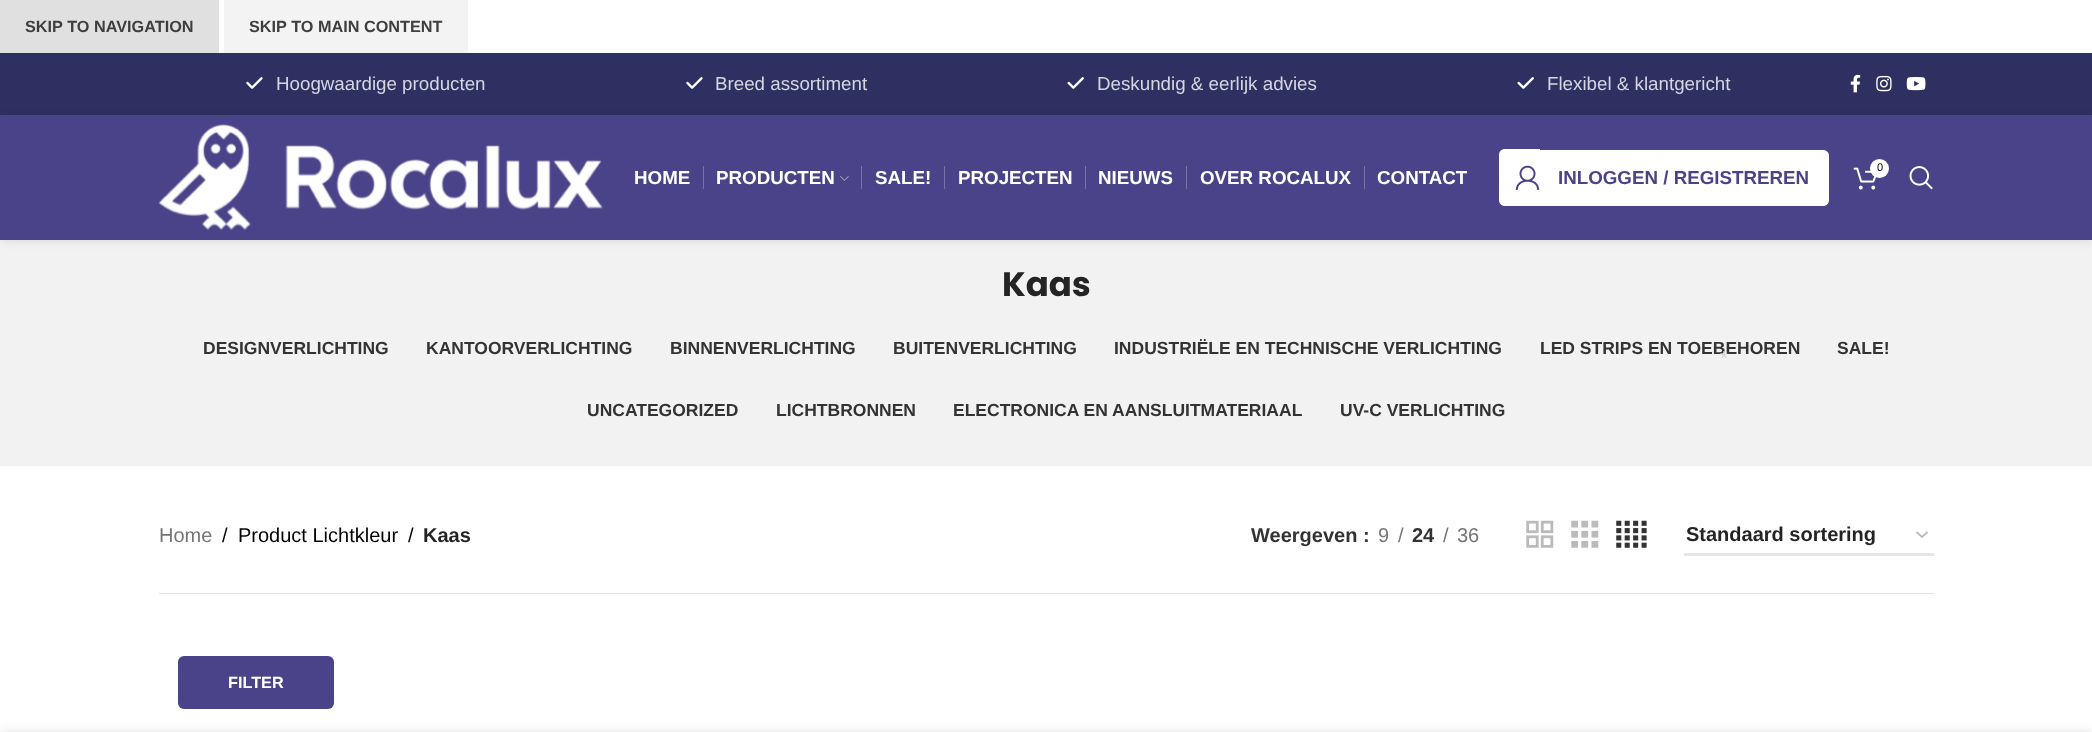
<svg xmlns="http://www.w3.org/2000/svg" width="2092" height="732" viewBox="0 0 2092 732">
  <rect width="100%" height="100%" fill="#fff"/>
  <path d="M0 0h219v53H0z" fill="#e0e0e0"/>
  <path d="M224 0h244v53H224z" fill="#f3f3f3"/>
  <path d="M0 53h2092v62H0z" fill="#2f3062"/>
  <image x="246" y="77" width="17" height="12" href="img/1.png"/>
  <image x="686" y="77" width="17" height="12" href="img/1.png"/>
  <image x="1067" y="77" width="17" height="12" href="img/2.png"/>
  <image x="1517" y="77" width="17" height="12" href="img/2.png"/>
  <image x="1850" y="74" width="11" height="19" href="img/3.png"/>
  <image x="1876" y="75" width="16" height="17" href="img/4.png"/>
  <image x="1906" y="77" width="20" height="14" href="img/5.png"/>
  <path d="M0 240h2092v226H0z" fill="#f2f2f2"/>
  <path d="M0 116h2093v125H0z" fill="#0000001a" filter="blur(5px)"/>
  <path d="M0 115h2092v125H0z" fill="#4b4389"/>
  <image x="158" y="124" width="445" height="107" href="img/6.png"/>
  <path d="M703 166h1v23H703z" fill="#7872a7"/>
  <image x="840" y="176" width="9" height="5" href="img/7.png"/>
  <path d="M861 166h1v23H861z" fill="#7872a7"/>
  <path d="M944 166h1v23H944z" fill="#7872a7"/>
  <path d="M1085 166h1v23H1085z" fill="#7872a7"/>
  <path d="M1186 166h1v23H1186z" fill="#7872a7"/>
  <path d="M1364 166h1v23H1364z" fill="#7872a7"/>
  <path d="M1505 149H1540V206H1505C1501.5 206 1499 203.5 1499 200V155C1499 151.5 1501.5 149 1505 149Z" fill="#fff"/>
  <image x="1515" y="165" width="25" height="25" href="img/8.png"/>
  <path d="M1540 150H1823C1826.5 150 1829 152.5 1829 156V200C1829 203.5 1826.5 206 1823 206H1540Z" fill="#fff"/>
  <image x="1853" y="167" width="24" height="23" href="img/9.png"/>
  <circle cx="1879.5" cy="168.5" r="9.5" fill="#fff"/>
  <image x="1909" y="166" width="24" height="24" href="img/10.png"/>
  <image x="1526" y="520" width="28" height="28" href="img/11.png"/>
  <image x="1571" y="520" width="28" height="28" href="img/12.png"/>
  <image x="1616" y="520" width="31" height="28" href="img/13.png"/>
  <path d="M1916.5 532L1922 537L1927.5 532" fill="none" stroke="#bbb" stroke-width="1.8"/>
  <path d="M1684 553h250v3H1684z" fill="#e6e6e6"/>
  <path d="M159 593h1775v1H159z" fill="#e4e4e4"/>
  <rect x="178" y="656" width="156" height="53" rx="6" fill="#4b4389"/>
  <path d="M0 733h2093v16H0z" fill="#00000024" filter="blur(5.5px)"/>
  <g font-family="Liberation Sans" font-size="16.25" font-weight="bold" fill="#3e3e3e">
    <text x="25" y="32">SKIP TO NAVIGATION</text>
    <text x="249" y="32">SKIP TO MAIN CONTENT</text>
  </g>
  <g font-family="Liberation Sans" font-size="18.75" fill="#d5d6e0">
    <text x="276" y="90">Hoogwaardige producten</text>
    <text x="715" y="90">Breed assortiment</text>
    <text x="1097" y="90">Deskundig &amp; eerlijk advies</text>
    <text x="1547" y="90">Flexibel &amp; klantgericht</text>
  </g>
  <g font-family="Liberation Sans" font-size="18.75" font-weight="bold" fill="#fff">
    <text x="634" y="184">HOME</text>
    <text x="716" y="184">PRODUCTEN</text>
    <text x="875" y="184">SALE!</text>
    <text x="958" y="184">PROJECTEN</text>
    <text x="1098" y="184">NIEUWS</text>
    <text x="1200" y="184">OVER ROCALUX</text>
    <text x="1377" y="184">CONTACT</text>
  </g>
  <text x="1558" y="184" font-family="Liberation Sans" font-size="18.75" font-weight="bold" fill="#4b4389">INLOGGEN / REGISTREREN</text>
  <text x="1877" y="171" font-family="Liberation Sans" font-size="11" fill="#000">0</text>
  <text x="1002" y="296" font-family="Poppins" font-size="34" font-weight="bold" fill="#242424">Kaas</text>
  <g font-family="Liberation Sans" font-size="17.5" font-weight="bold" fill="#333">
    <text x="203" y="354">DESIGNVERLICHTING</text>
    <text x="426" y="354">KANTOORVERLICHTING</text>
    <text x="670" y="354">BINNENVERLICHTING</text>
    <text x="893" y="354">BUITENVERLICHTING</text>
    <text x="1114" y="354">INDUSTRIËLE EN TECHNISCHE VERLICHTING</text>
    <text x="1540" y="354">LED STRIPS EN TOEBEHOREN</text>
  </g>
  <text x="1720" y="365" font-family="Liberation Sans" font-size="20" fill="#d5d5d5">*</text>
  <g font-family="Liberation Sans" font-size="17.5" font-weight="bold" fill="#333">
    <text x="1837" y="354">SALE!</text>
    <text x="587" y="416">UNCATEGORIZED</text>
    <text x="776" y="416">LICHTBRONNEN</text>
    <text x="953" y="416">ELECTRONICA EN AANSLUITMATERIAAL</text>
    <text x="1340" y="416">UV-C VERLICHTING</text>
  </g>
  <text x="159" y="542" font-family="Liberation Sans" font-size="20" fill="#767676">Home</text>
  <g font-family="Liberation Sans" font-size="20" fill="#000">
    <text x="222" y="542">/</text>
    <text x="238" y="542">Product Lichtkleur</text>
    <text x="408" y="542">/</text>
  </g>
  <text x="423" y="542" font-family="Liberation Sans" font-size="20" font-weight="bold" fill="#242424">Kaas</text>
  <text x="1251" y="542" font-family="Liberation Sans" font-size="20" font-weight="bold" fill="#333">Weergeven :</text>
  <g font-family="Liberation Sans" font-size="20" fill="#767676">
    <text x="1378" y="542">9</text>
    <text x="1398" y="542">/</text>
  </g>
  <text x="1412" y="542" font-family="Liberation Sans" font-size="20" font-weight="bold" fill="#333">24</text>
  <g font-family="Liberation Sans" font-size="20" fill="#767676">
    <text x="1443" y="542">/</text>
    <text x="1457" y="542">36</text>
  </g>
  <text x="1686" y="541" font-family="Liberation Sans" font-size="20" font-weight="bold" fill="#242424">Standaard sortering</text>
  <text x="228" y="688" font-family="Liberation Sans" font-size="16.25" font-weight="bold" fill="#fff">FILTER</text>
</svg>
